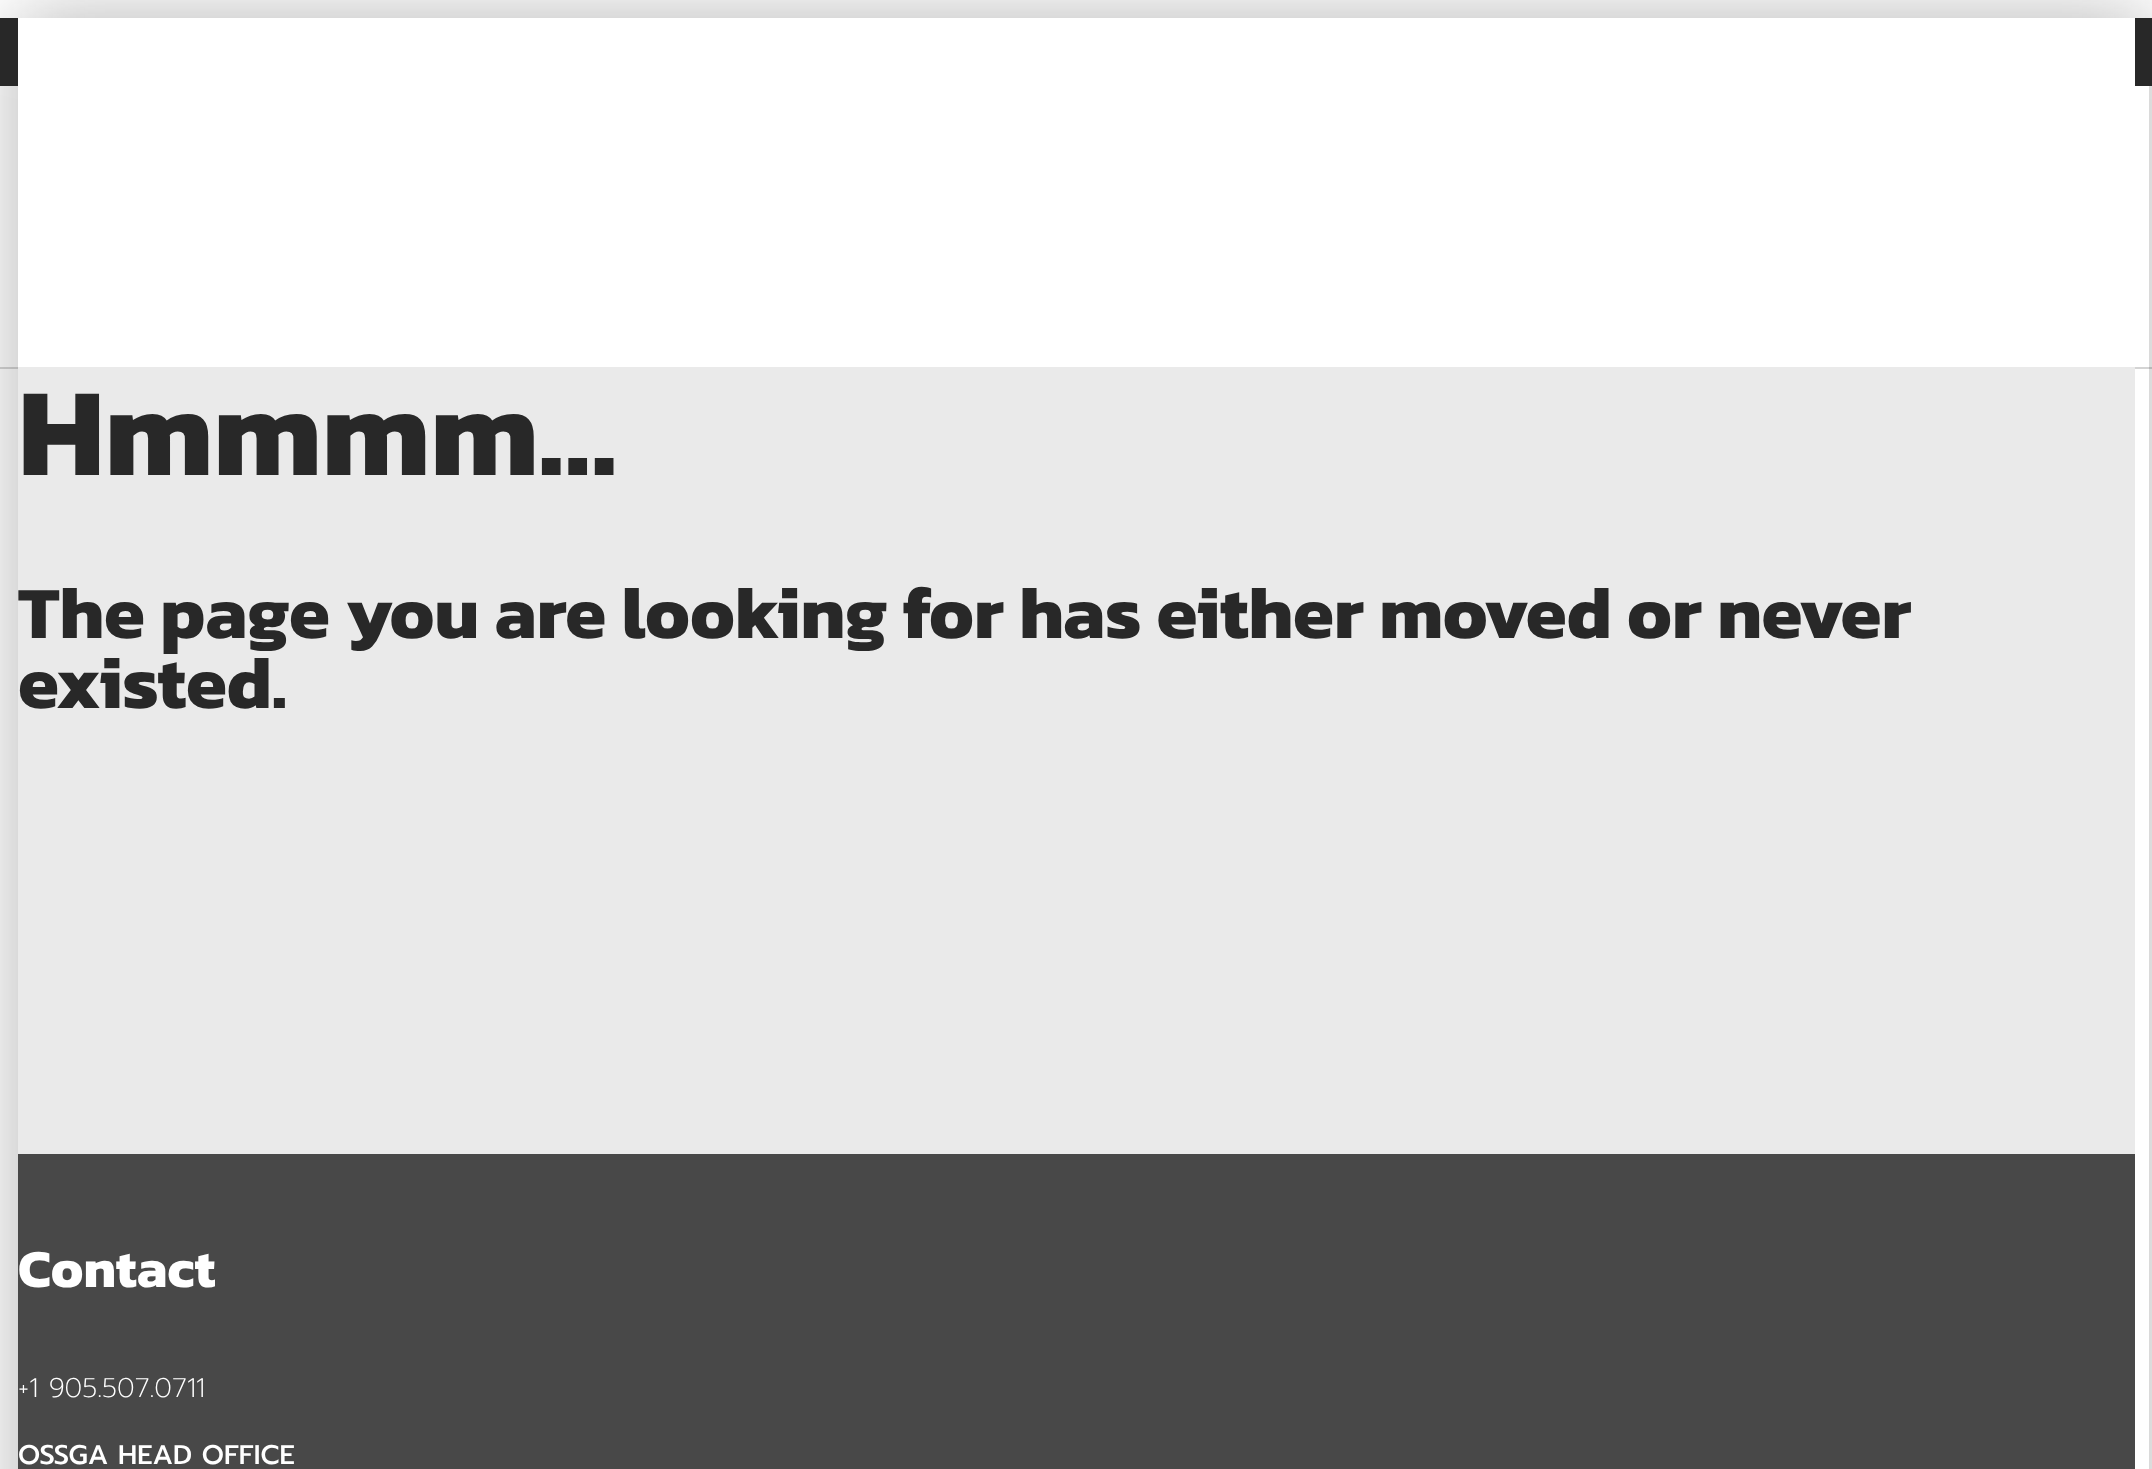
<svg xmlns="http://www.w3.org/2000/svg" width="2152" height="1469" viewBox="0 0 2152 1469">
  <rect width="100%" height="100%" fill="#fff"/>
  <path d="M18 18h2131v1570H18z" fill="#28282859" filter="blur(39.5px)"/>
  <path d="M2135 86h14v1383H2135z" fill="#fff"/>
  <path d="M0 18h2152v68H0z" fill="#282828"/>
  <path d="M0 367h2152v2H0z" fill="#28282833"/>
  <path d="M18 18h2117v349H18z" fill="#fff"/>
  <path d="M18 367h2117v787H18z" fill="#eaeaea"/>
  <path d="M18 1154h2117v315H18z" fill="#484848"/>
  <text x="18" y="475" font-family="Kanit" font-size="126" font-weight="bold" fill="#282828">Hmmmm…</text>
  <g font-family="Kanit" font-size="74.25" font-weight="bold" fill="#282828">
    <text x="18" y="638">The page you are looking for has either moved or never</text>
    <text x="18" y="708">existed.</text>
  </g>
  <text x="18" y="1287" font-family="Kanit" font-size="54" font-weight="bold" fill="#fff">Contact</text>
  <text x="18" y="1397" font-family="Prompt" font-size="27" font-weight="200" fill="#fff">+1 905.507.0711</text>
  <text x="18" y="1464" font-family="Prompt" font-size="27" font-weight="500" fill="#fff">OSSGA HEAD OFFICE</text>
</svg>
